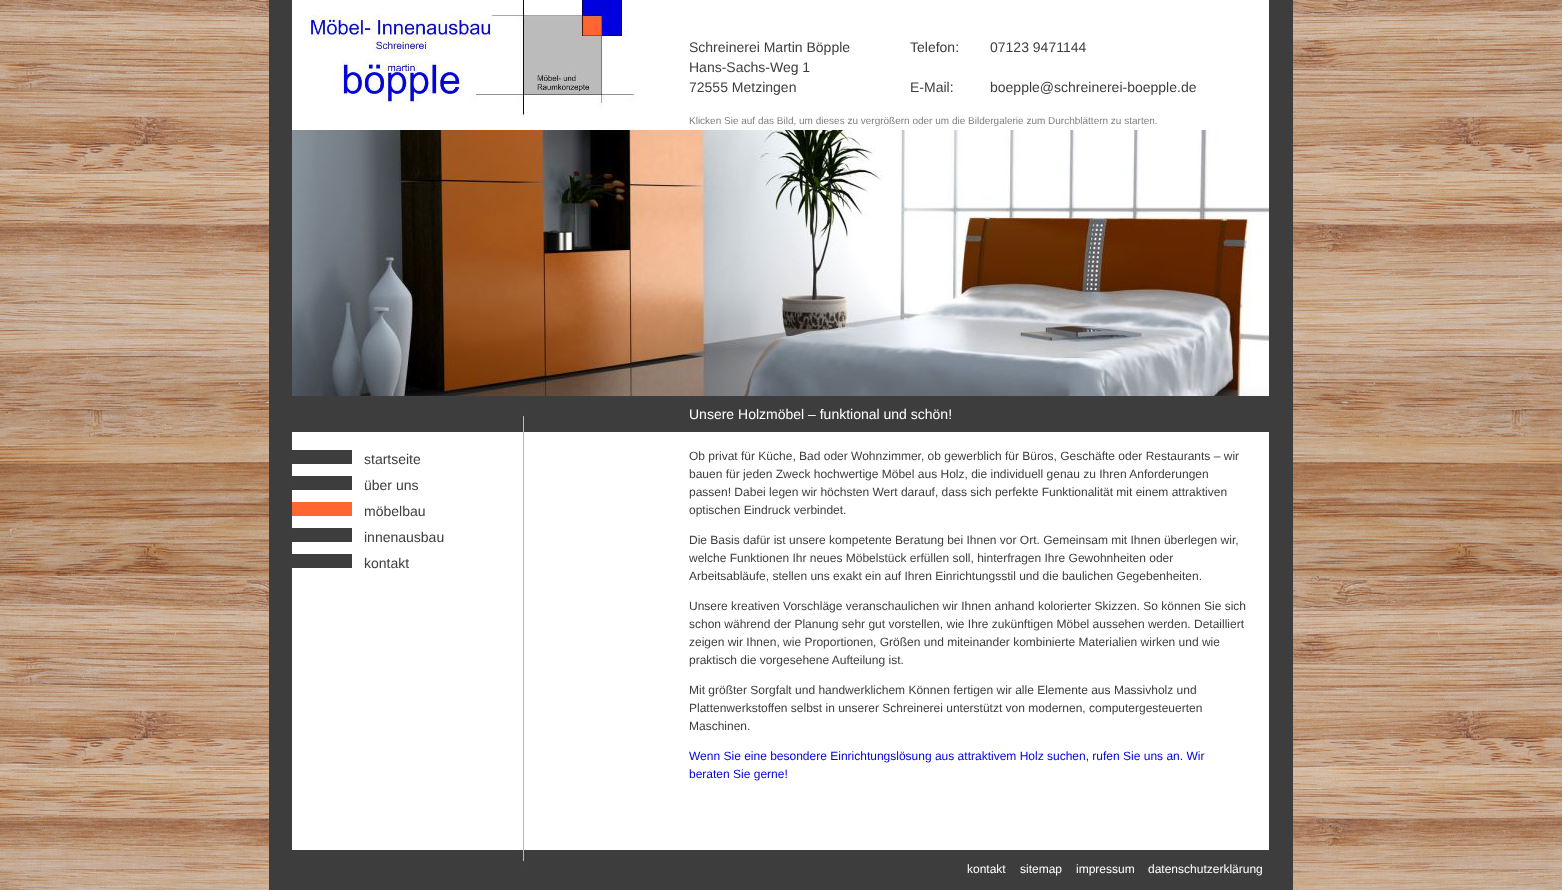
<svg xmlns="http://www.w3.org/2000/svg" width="1562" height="890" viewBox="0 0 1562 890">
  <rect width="100%" height="100%" fill="#fff"/>
  <image x="0" y="0" width="1562" height="890" href="img/1.png"/>
  <image x="269" y="0" width="1024" height="432" href="img/2.png"/>
  <image x="292" y="130" width="977" height="266" href="img/3.png"/>
  <image x="269" y="432" width="1024" height="418" href="img/4.png"/>
  <path d="M292 450h60v14H292z" fill="#3d3d3d"/>
  <path d="M292 476h60v14H292z" fill="#3d3d3d"/>
  <path d="M292 502h60v14H292z" fill="#ff6632"/>
  <path d="M292 528h60v14H292z" fill="#3d3d3d"/>
  <path d="M292 554h60v14H292z" fill="#3d3d3d"/>
  <image x="269" y="850" width="1024" height="40" href="img/5.png"/>
  <g font-family="Liberation Sans" font-size="14" fill="#3d3d3d">
    <text x="689" y="52">Schreinerei Martin Böpple</text>
    <text x="910" y="52">Telefon:</text>
    <text x="990" y="52">07123 9471144</text>
    <text x="689" y="72">Hans-Sachs-Weg 1</text>
    <text x="689" y="92">72555 Metzingen</text>
    <text x="910" y="92">E-Mail:</text>
    <text x="990" y="92">boepple@schreinerei-boepple.de</text>
  </g>
  <text x="689" y="124" font-family="Liberation Sans" font-size="10" fill="#808080">Klicken Sie auf das Bild, um dieses zu vergrößern oder um die Bildergalerie zum Durchblättern zu starten.</text>
  <g font-family="Liberation Sans" font-size="14" fill="#3d3d3d">
    <text x="364" y="464">startseite</text>
    <text x="364" y="490">über uns</text>
    <text x="364" y="516">möbelbau</text>
    <text x="364" y="542">innenausbau</text>
    <text x="364" y="568">kontakt</text>
  </g>
  <text x="689" y="419" font-family="Liberation Sans" font-size="14" fill="#fff">Unsere Holzmöbel – funktional und schön!</text>
  <g font-family="Liberation Sans" font-size="12" fill="#3d3d3d">
    <text x="689" y="460">Ob privat für Küche, Bad oder Wohnzimmer, ob gewerblich für Büros, Geschäfte oder Restaurants – wir</text>
    <text x="689" y="478">bauen für jeden Zweck hochwertige Möbel aus Holz, die individuell genau zu Ihren Anforderungen</text>
    <text x="689" y="496">passen! Dabei legen wir höchsten Wert darauf, dass sich perfekte Funktionalität mit einem attraktiven</text>
    <text x="689" y="514">optischen Eindruck verbindet.</text>
    <text x="689" y="544">Die Basis dafür ist unsere kompetente Beratung bei Ihnen vor Ort. Gemeinsam mit Ihnen überlegen wir,</text>
    <text x="689" y="562">welche Funktionen Ihr neues Möbelstück erfüllen soll, hinterfragen Ihre Gewohnheiten oder</text>
    <text x="689" y="580">Arbeitsabläufe, stellen uns exakt ein auf Ihren Einrichtungsstil und die baulichen Gegebenheiten.</text>
    <text x="689" y="610">Unsere kreativen Vorschläge veranschaulichen wir Ihnen anhand kolorierter Skizzen. So können Sie sich</text>
    <text x="689" y="628">schon während der Planung sehr gut vorstellen, wie Ihre zukünftigen Möbel aussehen werden. Detailliert</text>
    <text x="689" y="646">zeigen wir Ihnen, wie Proportionen, Größen und miteinander kombinierte Materialien wirken und wie</text>
    <text x="689" y="664">praktisch die vorgesehene Aufteilung ist.</text>
    <text x="689" y="694">Mit größter Sorgfalt und handwerklichem Können fertigen wir alle Elemente aus Massivholz und</text>
    <text x="689" y="712">Plattenwerkstoffen selbst in unserer Schreinerei unterstützt von modernen, computergesteuerten</text>
    <text x="689" y="730">Maschinen.</text>
  </g>
  <g font-family="Liberation Sans" font-size="12" fill="#0101dd">
    <text x="689" y="760">Wenn Sie eine besondere Einrichtungslösung aus attraktivem Holz suchen, rufen Sie uns an. Wir</text>
    <text x="689" y="778">beraten Sie gerne!</text>
  </g>
  <g font-family="Liberation Sans" font-size="12" fill="#fff">
    <text x="967" y="873">kontakt</text>
    <text x="1020" y="873">sitemap</text>
    <text x="1076" y="873">impressum</text>
    <text x="1148" y="873">datenschutzerklärung</text>
  </g>
</svg>
